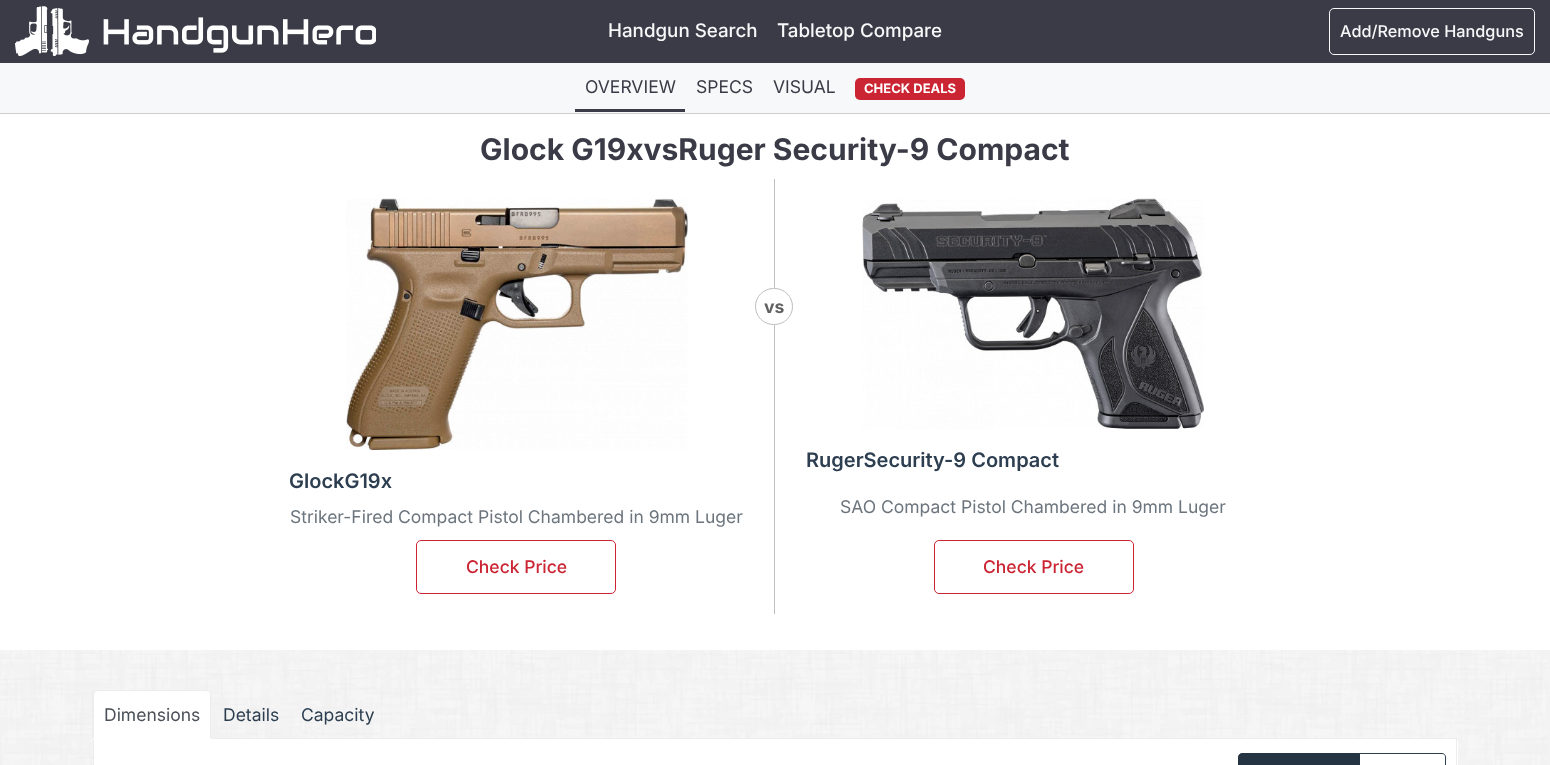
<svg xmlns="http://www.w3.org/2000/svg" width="1550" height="765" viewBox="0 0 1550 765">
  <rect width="100%" height="100%" fill="#f3f3f4"/>
  <image x="0" y="650" width="1548" height="115" href="img/1.png"/>
  <path d="M0 0h1550v63H0z" fill="#3a3b46"/>
  <image x="15" y="6" width="361" height="50" href="img/2.png"/>
  <rect x="1329.5" y="8.5" width="205" height="46" rx="4.5" fill="none" stroke="#f7f8f9"/>
  <path d="M0 63h1550v50H0z" fill="#f7f8f9"/>
  <path d="M0 113h1550v1H0z" fill="#cfcfcf"/>
  <path d="M575 109h110v3H575z" fill="#3a3b46"/>
  <rect x="855" y="78" width="110" height="22" rx="5" fill="#cb2432"/>
  <path d="M0 114h1550v536H0z" fill="#fff"/>
  <path d="M774 179h1v435H774z" fill="#bebebe"/>
  <rect x="755.5" y="288.5" width="37" height="36" rx="18" fill="#fff" stroke="#bebebe"/>
  <image x="346" y="198" width="342" height="252" href="img/3.png"/>
  <rect x="416.5" y="540.5" width="199" height="53" rx="4.5" fill="none" stroke="#cb2432"/>
  <image x="862" y="198" width="342" height="231" href="img/4.png"/>
  <rect x="934.5" y="540.5" width="199" height="53" rx="4.5" fill="none" stroke="#cb2432"/>
  <path d="M211 738h1247v1H211z" fill="#ededed"/>
  <path d="M98 690H206C209 690 211 692 211 695V739H93V695C93 692 95 690 98 690Z" fill="#fff"/>
  <path d="M98 690C96 690 95 690 94 691L95 692C96 691 97 691 98 691H206L209 692H210C209 691 208 690 206 690Z" fill="#ededed"/>
  <path d="M210 692C211 692 211 694 211 695V738H210V695C210 694 210 693 209 692Z" fill="#ededed"/>
  <path d="M211 738L92 739L94 737V738H210Z" fill="#fff"/>
  <path d="M92 739V693L94 691L95 692L94 695V737Z" fill="#ededed"/>
  <path d="M94 739h1364v26H94z" fill="#fff"/>
  <path d="M1456 739h1v26H1456z" fill="#ededed"/>
  <path d="M93 739h1v26H93z" fill="#ededed"/>
  <path d="M1359.5 753.5H1442C1444 753.5 1445.5 755 1445.5 757V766C1445.5 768 1444 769.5 1442 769.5H1359.5Z" fill="none" stroke="#2c3e50"/>
  <path d="M1242 753.5H1359.5V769.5H1242C1240 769.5 1238.5 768 1238.5 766V757C1238.5 755 1240 753.5 1242 753.5Z" fill="#253443" stroke="#253443"/>
  <g font-family="Inter" font-size="18.75" font-weight="500" fill="#f7f8f9">
    <text x="608" y="37">Handgun Search</text>
    <text x="777" y="37">Tabletop Compare</text>
  </g>
  <text x="1340" y="37" font-family="Inter" font-size="16.25" font-weight="500" fill="#f7f8f9">Add/Remove Handguns</text>
  <g font-family="Inter" font-size="17.5" fill="#3a3b46">
    <text x="585" y="93">OVERVIEW</text>
    <text x="696" y="93">SPECS</text>
    <text x="773" y="93">VISUAL</text>
  </g>
  <text x="864" y="93" font-family="Inter" font-size="13" font-weight="bold" fill="#fff">CHECK DEALS</text>
  <text x="480" y="160" font-family="Inter" font-size="30" font-weight="bold" fill="#3a3b46">Glock G19xvsRuger Security-9 Compact</text>
  <text x="764" y="313" font-family="Inter" font-size="17.5" font-weight="bold" fill="#616161">vs</text>
  <text x="289" y="488" font-family="Inter" font-size="20" font-weight="600" fill="#2c3e50">GlockG19x</text>
  <text x="290" y="523" font-family="Inter" font-size="17.5" fill="#6c757d">Striker-Fired Compact Pistol Chambered in 9mm Luger</text>
  <text x="466" y="573" font-family="Inter" font-size="17.5" font-weight="500" fill="#cb2432">Check Price</text>
  <text x="806" y="467" font-family="Inter" font-size="20" font-weight="600" fill="#2c3e50">RugerSecurity-9 Compact</text>
  <text x="840" y="513" font-family="Inter" font-size="17.5" fill="#6c757d">SAO Compact Pistol Chambered in 9mm Luger</text>
  <text x="983" y="573" font-family="Inter" font-size="17.5" font-weight="500" fill="#cb2432">Check Price</text>
  <text x="104" y="721" font-family="Inter" font-size="17.5" fill="#495057">Dimensions</text>
  <g font-family="Inter" font-size="17.5" fill="#2c3e50">
    <text x="223" y="721">Details</text>
    <text x="301" y="721">Capacity</text>
  </g>
</svg>
